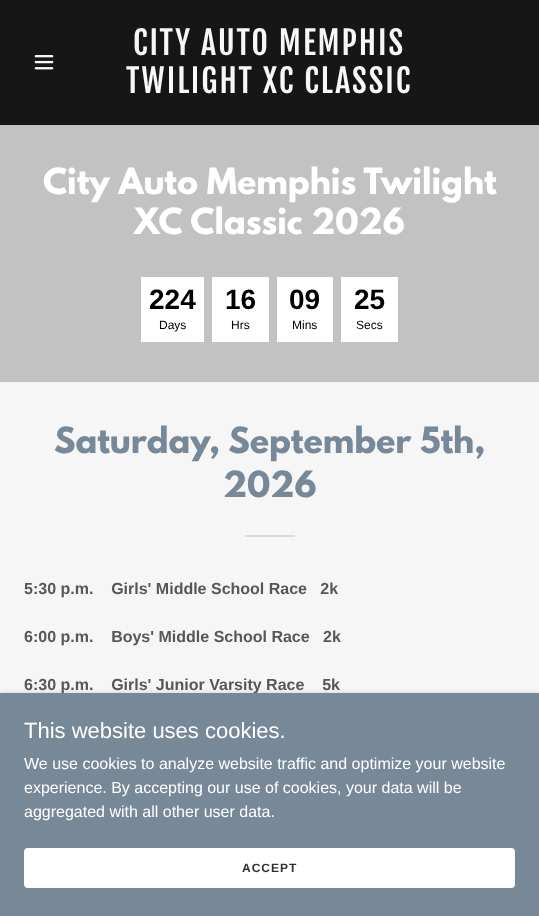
<svg xmlns="http://www.w3.org/2000/svg" width="539" height="916" viewBox="0 0 539 916">
  <rect width="100%" height="100%" fill="#161616"/>
  <image x="34" y="55" width="20" height="15" href="img/1.png"/>
  <path d="M0 125h539v257H0z" fill="#c2c2c2"/>
  <path d="M141 277h63v65H141z" fill="#fff"/>
  <path d="M212 277h57v65H212z" fill="#fff"/>
  <path d="M277 277h56v65H277z" fill="#fff"/>
  <path d="M341 277h57v65H341z" fill="#fff"/>
  <path d="M0 382h539v311H0z" fill="#f6f6f6"/>
  <path d="M245 535h50v2H245z" fill="#dadada"/>
  <path d="M0 695h539v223H0z" fill="#0000004d" filter="blur(3px)"/>
  <g font-family="Fjalla One" font-size="32" letter-spacing="2" fill="#f7f7f7">
    <text x="133" y="55">CITY AUTO MEMPHIS</text>
    <text x="126" y="93">TWILIGHT XC CLASSIC</text>
  </g>
  <g font-family="League Spartan" font-size="32" font-weight="bold" fill="#fff">
    <text x="43" y="194">City Auto Memphis Twilight</text>
    <text x="134" y="234">XC Classic 2026</text>
  </g>
  <text x="149" y="309" font-family="Liberation Sans" font-size="28" font-weight="bold" fill="#000">224</text>
  <text x="159" y="329" font-family="Liberation Sans" font-size="12" fill="#000">Days</text>
  <text x="225" y="309" font-family="Liberation Sans" font-size="28" font-weight="bold" fill="#000">16</text>
  <text x="231" y="329" font-family="Liberation Sans" font-size="12" fill="#000">Hrs</text>
  <text x="289" y="309" font-family="Liberation Sans" font-size="28" font-weight="bold" fill="#000">09</text>
  <text x="292" y="329" font-family="Liberation Sans" font-size="12" fill="#000">Mins</text>
  <text x="354" y="309" font-family="Liberation Sans" font-size="28" font-weight="bold" fill="#000">25</text>
  <text x="356" y="329" font-family="Liberation Sans" font-size="12" fill="#000">Secs</text>
  <g font-family="League Spartan" font-size="32" font-weight="bold" fill="#789">
    <text x="54" y="453">Saturday, September 5th,</text>
    <text x="223" y="497">2026</text>
  </g>
  <g font-family="Liberation Sans" font-size="16" font-weight="bold" fill="#575757">
    <text x="24" y="594" xml:space="preserve">5:30 p.m.    Girls' Middle School Race   2k</text>
    <text x="24" y="642" xml:space="preserve">6:00 p.m.    Boys' Middle School Race   2k</text>
    <text x="24" y="690" xml:space="preserve">6:30 p.m.    Girls' Junior Varsity Race    5k</text>
  </g>
  <path d="M0 693h539v223H0z" fill="#789"/>
  <text x="24" y="738" font-family="Liberation Sans" font-size="22" fill="#fff">This website uses cookies.</text>
  <g font-family="Liberation Sans" font-size="16" fill="#fff">
    <text x="24" y="769">We use cookies to analyze website traffic and optimize your website</text>
    <text x="24" y="793">experience. By accepting our use of cookies, your data will be</text>
    <text x="24" y="817">aggregated with all other user data.</text>
  </g>
  <rect x="24" y="848" width="491" height="40" rx="4" fill="#fff"/>
  <text x="242" y="872" font-family="Liberation Sans" font-size="12" font-weight="bold" letter-spacing="1" fill="#303030">ACCEPT</text>
</svg>
